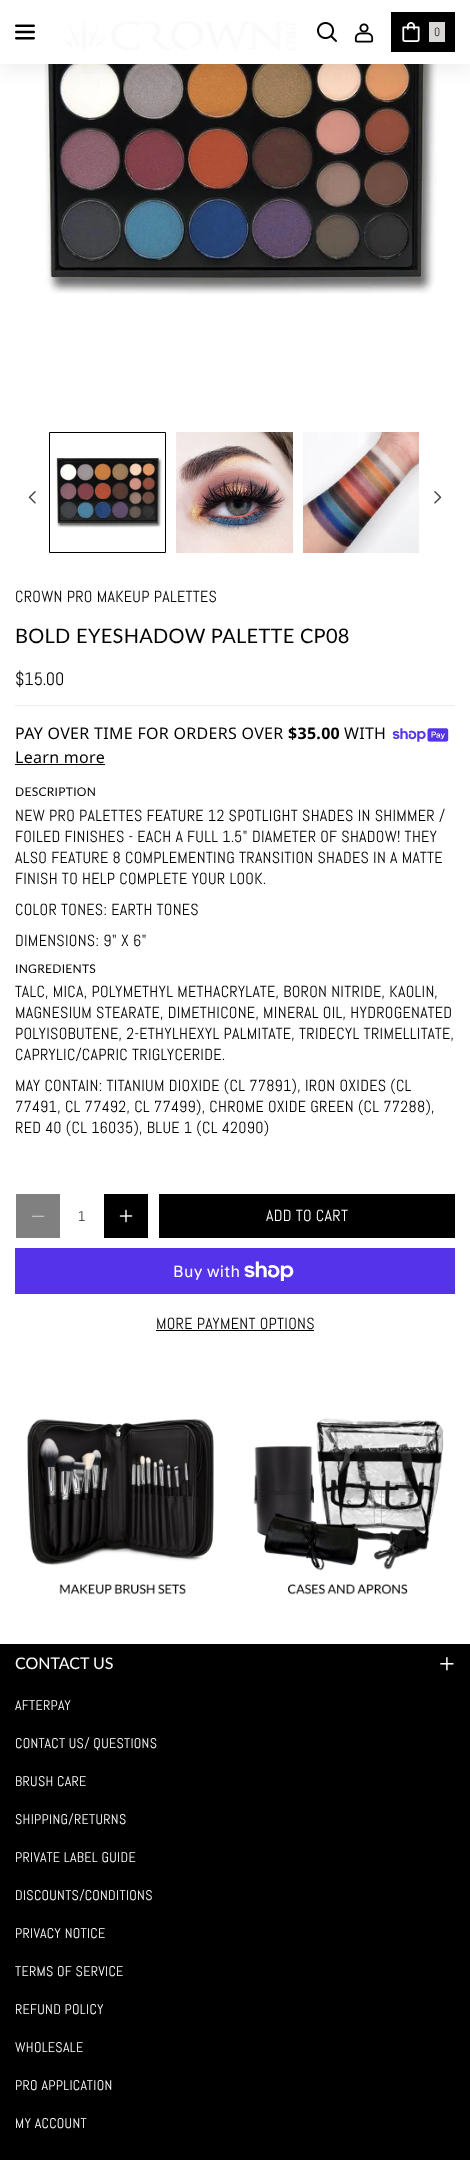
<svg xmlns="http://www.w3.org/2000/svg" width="470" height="2160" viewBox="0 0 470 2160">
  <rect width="100%" height="100%" fill="#fff"/>
  <image x="44" y="64" width="393" height="230" href="img/6.png"/>
  <path d="M0 4h470v64H0z" fill="#00000014" filter="blur(10px)"/>
  <path d="M0 0h470v64H0z" fill="#fff"/>
  <image x="15" y="24" width="20" height="16" href="img/1.png"/>
  <image x="63" y="19" width="233" height="32" href="img/2.png"/>
  <image x="317" y="22" width="20" height="20" href="img/3.png"/>
  <image x="354" y="23" width="20" height="20" href="img/4.png"/>
  <path d="M391 12h64v40H391z" fill="#000"/>
  <image x="402" y="22" width="18" height="20" href="img/5.png"/>
  <path d="M429 22h16v20H429z" fill="#d9d6d6"/>
  <image x="28" y="491" width="8" height="13" href="img/7.png"/>
  <path d="M49.5 432.5h116v120H49.5z" fill="none" stroke="#000"/>
  <image x="56" y="458" width="106" height="70" href="img/8.png"/>
  <image x="176" y="432" width="117" height="121" href="img/9.png"/>
  <image x="303" y="432" width="116" height="121" href="img/10.png"/>
  <image x="434" y="491" width="8" height="13" href="img/11.png"/>
  <path d="M15 705h440v1H15z" fill="#ebebeb"/>
  <image x="392" y="728" width="57" height="14" href="img/12.png"/>
  <path d="M15 764h90v1H15z" fill="#000"/>
  <path d="M16 1194h44v44H16z" fill="#808080"/>
  <image x="31" y="1215" width="14" height="2" href="img/13.png"/>
  <path d="M104 1194h44v44H104z" fill="#000"/>
  <image x="119" y="1209" width="14" height="14" href="img/14.png"/>
  <path d="M159 1194h296v44H159z" fill="#000"/>
  <path d="M15 1248h440v46H15z" fill="#5433eb"/>
  <image x="244" y="1261" width="50" height="20" href="img/15.png"/>
  <path d="M156 1330h158v1H156z" fill="#000"/>
  <image x="27" y="1418" width="187" height="177" href="img/16.png"/>
  <image x="253" y="1418" width="191" height="177" href="img/17.png"/>
  <path d="M0 1644h470v516H0z" fill="#000"/>
  <text x="434" y="36" font-family="Abel" font-size="12" fill="#202020">0</text>
  <text x="15" y="602" font-family="Abel" font-size="16" letter-spacing="0.3" fill="#000">CROWN PRO MAKEUP PALETTES</text>
  <text x="15" y="643" font-family="Lato" font-size="20" letter-spacing="0.3" fill="#000">BOLD EYESHADOW PALETTE CP08</text>
  <text x="15" y="685" font-family="Abel" font-size="18" fill="#000">$15.00</text>
  <text x="15" y="739" font-family="Noto Sans" font-size="16" letter-spacing="0.3" fill="#000">PAY OVER TIME FOR ORDERS OVER</text>
  <text x="288" y="739" font-family="Noto Sans" font-size="16" font-weight="bold" letter-spacing="0.3" fill="#000">$35.00</text>
  <g font-family="Noto Sans" font-size="16" letter-spacing="0.3" fill="#000">
    <text x="344" y="739">WITH</text>
    <text x="15" y="763">Learn more</text>
  </g>
  <text x="15" y="796" font-family="Lato" font-size="12" letter-spacing="0.3" fill="#000">DESCRIPTION</text>
  <g font-family="Abel" font-size="16" letter-spacing="0.3" fill="#000">
    <text x="15" y="821">NEW PRO PALETTES FEATURE 12 SPOTLIGHT SHADES IN SHIMMER /</text>
    <text x="15" y="842">FOILED FINISHES - EACH A FULL 1.5" DIAMETER OF SHADOW! THEY</text>
    <text x="15" y="863">ALSO FEATURE 8 COMPLEMENTING TRANSITION SHADES IN A MATTE</text>
    <text x="15" y="884">FINISH TO HELP COMPLETE YOUR LOOK.</text>
    <text x="15" y="915">COLOR TONES: EARTH TONES</text>
    <text x="15" y="946">DIMENSIONS: 9" X 6"</text>
  </g>
  <text x="15" y="973" font-family="Lato" font-size="12" letter-spacing="0.3" fill="#000">INGREDIENTS</text>
  <g font-family="Abel" font-size="16" letter-spacing="0.3" fill="#000">
    <text x="15" y="997">TALC, MICA, POLYMETHYL METHACRYLATE, BORON NITRIDE, KAOLIN,</text>
    <text x="15" y="1018">MAGNESIUM STEARATE, DIMETHICONE, MINERAL OIL, HYDROGENATED</text>
    <text x="15" y="1039">POLYISOBUTENE, 2-ETHYLHEXYL PALMITATE, TRIDECYL TRIMELLITATE,</text>
    <text x="15" y="1060">CAPRYLIC/CAPRIC TRIGLYCERIDE.</text>
    <text x="15" y="1091">MAY CONTAIN: TITANIUM DIOXIDE (CL 77891), IRON OXIDES (CL</text>
    <text x="15" y="1112">77491, CL 77492, CL 77499), CHROME OXIDE GREEN (CL 77288),</text>
    <text x="15" y="1133">RED 40 (CL 16035), BLUE 1 (CL 42090)</text>
  </g>
  <text x="78" y="1221" font-family="Abel" font-size="14" fill="#262626">1</text>
  <text x="266" y="1221" font-family="Abel" font-size="16" letter-spacing="0.3" fill="#fff">ADD TO CART</text>
  <text x="173" y="1277" font-family="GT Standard" font-size="16" letter-spacing="0.3" fill="#fff">Buy with</text>
  <text x="156" y="1329" font-family="Abel" font-size="16" letter-spacing="0.3" fill="#000">MORE PAYMENT OPTIONS</text>
  <text x="15" y="1669" font-family="Lato" font-size="16" fill="#fff">CONTACT US</text>
  <text x="439" y="1673" font-family="Liberation Serif" font-size="28" fill="#fff">+</text>
  <g font-family="Abel" font-size="14" letter-spacing="0.3" fill="#fff">
    <text x="15" y="1710">AFTERPAY</text>
    <text x="15" y="1748">CONTACT US/ QUESTIONS</text>
    <text x="15" y="1786">BRUSH CARE</text>
    <text x="15" y="1824">SHIPPING/RETURNS</text>
    <text x="15" y="1862">PRIVATE LABEL GUIDE</text>
    <text x="15" y="1900">DISCOUNTS/CONDITIONS</text>
    <text x="15" y="1938">PRIVACY NOTICE</text>
    <text x="15" y="1976">TERMS OF SERVICE</text>
    <text x="15" y="2014">REFUND POLICY</text>
    <text x="15" y="2052">WHOLESALE</text>
    <text x="15" y="2090">PRO APPLICATION</text>
    <text x="15" y="2128">MY ACCOUNT</text>
  </g>
</svg>
